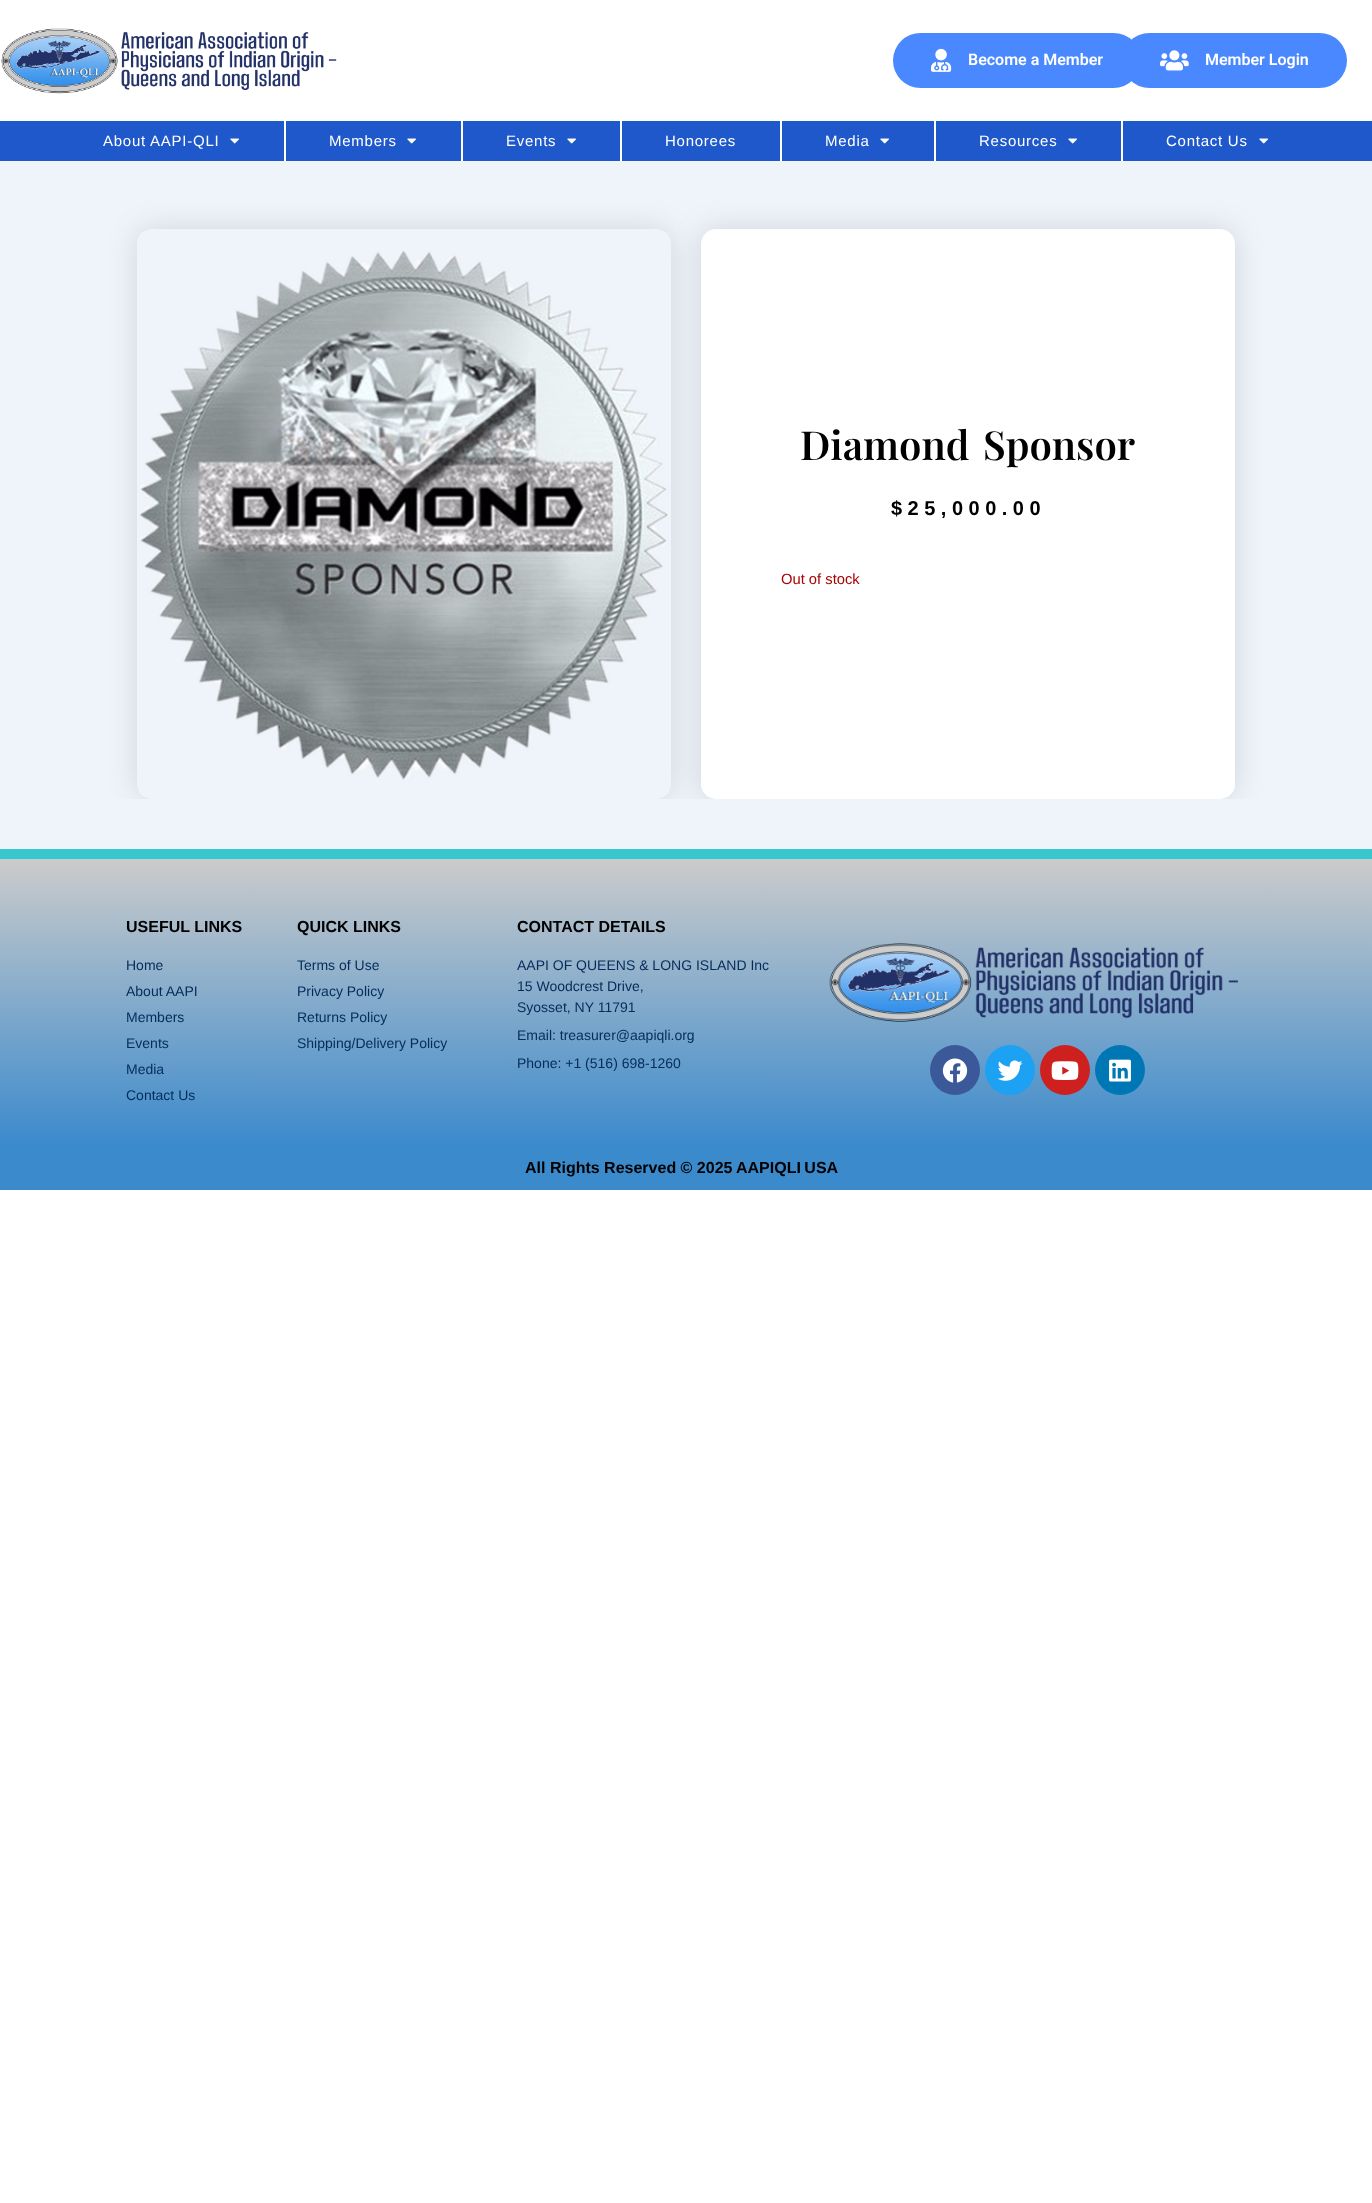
<svg xmlns="http://www.w3.org/2000/svg" width="1372" height="2203" viewBox="0 0 1372 2203">
  <defs>
    <clipPath id="clip1"><path d="M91 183H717V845H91ZM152 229H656C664.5 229 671 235.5 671 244V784C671 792.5 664.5 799 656 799H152C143.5 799 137 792.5 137 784V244C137 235.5 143.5 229 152 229Z" clip-rule="evenodd"/></clipPath>
    <linearGradient id="g1" gradientUnits="userSpaceOnUse" x1="686" y1="1146" x2="686" y2="859"><stop offset="0" stop-color="#3b8acc"/><stop offset="1" stop-color="#cbcbcb"/></linearGradient>
  </defs>
  <rect width="100%" height="100%" fill="#fff"/>
  <image x="1" y="28" width="336" height="66" href="img/1.png"/>
  <rect x="893" y="33" width="248" height="55" rx="27.5" fill="#4a88ff"/>
  <image x="931" y="48" width="21" height="24" href="img/2.png"/>
  <rect x="1122" y="33" width="225" height="55" rx="27.5" fill="#4a88ff"/>
  <image x="1160" y="50" width="29" height="21" href="img/3.png"/>
  <path d="M0 121h1372v40H0z" fill="#1e58cb"/>
  <image x="230" y="138" width="9" height="6" href="img/4.png"/>
  <path d="M284 121h2v40H284z" fill="#fff"/>
  <image x="407" y="138" width="9" height="6" href="img/4.png"/>
  <path d="M461 121h2v40H461z" fill="#fff"/>
  <image x="567" y="138" width="9" height="6" href="img/4.png"/>
  <path d="M620 121h2v40H620z" fill="#fff"/>
  <path d="M780 121h2v40H780z" fill="#fff"/>
  <image x="880" y="138" width="9" height="6" href="img/4.png"/>
  <path d="M934 121h2v40H934z" fill="#fff"/>
  <image x="1068" y="138" width="9" height="6" href="img/4.png"/>
  <path d="M1121 121h2v40H1121z" fill="#fff"/>
  <image x="1259" y="138" width="9" height="6" href="img/4.png"/>
  <path d="M0 161h1372v638H0z" fill="#eef4f9"/>
  <g clip-path="url(#clip1)">
    <rect x="137" y="229" width="534" height="570" rx="15" fill="#0000001f" filter="blur(15px)"/>
  </g>
  <image x="139" y="250" width="531" height="530" href="img/5.png"/>
  <rect x="701" y="229" width="534" height="570" rx="15" fill="#0000001f" filter="blur(15px)"/>
  <rect x="701" y="229" width="534" height="570" rx="15" fill="#fff"/>
  <path d="M0 799h1372v50H0z" fill="#eef4f9"/>
  <path d="M0 859h1372v287H0z" fill="url(#g1)"/>
  <path d="M0 849h1372v10H0z" fill="#39c7ce"/>
  <image x="829" y="943" width="409" height="79" href="img/6.png"/>
  <circle cx="955" cy="1070" r="25" fill="#3b5998"/>
  <image x="942" y="1058" width="26" height="25" href="img/7.png"/>
  <circle cx="1010" cy="1070" r="25" fill="#1da1f2"/>
  <image x="997" y="1060" width="26" height="21" href="img/8.png"/>
  <circle cx="1065" cy="1070" r="25" fill="#cd201f"/>
  <image x="1051" y="1061" width="28" height="19" href="img/9.png"/>
  <circle cx="1120" cy="1070" r="25" fill="#0077b5"/>
  <image x="1109" y="1059" width="22" height="23" href="img/10.png"/>
  <path d="M0 1146h1372v44H0z" fill="#3b8acc"/>
  <g font-family="Roboto" font-size="16" font-weight="600" fill="#fff">
    <text x="968" y="65">Become a Member</text>
    <text x="1205" y="65">Member Login</text>
  </g>
  <g font-family="Liberation Sans" font-size="15" letter-spacing="0.75" fill="#fff">
    <text x="103" y="146">About AAPI-QLI</text>
    <text x="329" y="146">Members</text>
    <text x="506" y="146">Events</text>
    <text x="665" y="146">Honorees</text>
    <text x="825" y="146">Media</text>
    <text x="979" y="146">Resources</text>
    <text x="1166" y="146">Contact Us</text>
  </g>
  <text x="800" y="460" word-spacing="4" font-family="Playfair Display" font-size="40" font-weight="600" fill="#000">Diamond Sponsor</text>
  <text x="891" y="515" font-family="Liberation Sans" font-size="20" font-weight="bold" letter-spacing="5.5" fill="#000">$25,000.00</text>
  <text x="781" y="584" font-family="Liberation Sans" font-size="14.75" fill="#a00">Out of stock</text>
  <text x="126" y="932" font-family="Liberation Sans" font-size="16" font-weight="bold" fill="#000">USEFUL LINKS</text>
  <g font-family="Liberation Sans" font-size="14" fill="#042c5b">
    <text x="126" y="970">Home</text>
    <text x="126" y="996">About AAPI</text>
    <text x="126" y="1022">Members</text>
    <text x="126" y="1048">Events</text>
    <text x="126" y="1074">Media</text>
    <text x="126" y="1100">Contact Us</text>
  </g>
  <text x="297" y="932" font-family="Liberation Sans" font-size="16" font-weight="bold" fill="#000">QUICK LINKS</text>
  <g font-family="Liberation Sans" font-size="14" fill="#042c5b">
    <text x="297" y="970">Terms of Use</text>
    <text x="297" y="996">Privacy Policy</text>
    <text x="297" y="1022">Returns Policy</text>
    <text x="297" y="1048">Shipping/Delivery Policy</text>
  </g>
  <text x="517" y="932" font-family="Liberation Sans" font-size="16" font-weight="bold" fill="#000">CONTACT DETAILS</text>
  <g font-family="Liberation Sans" font-size="14" fill="#042c5b">
    <text x="517" y="970">AAPI OF QUEENS &amp; LONG ISLAND Inc</text>
    <text x="517" y="991">15 Woodcrest Drive,</text>
    <text x="517" y="1012">Syosset, NY 11791</text>
    <text x="517" y="1040">Email: treasurer@aapiqli.org</text>
    <text x="517" y="1068">Phone: +1 (516) 698-1260</text>
  </g>
  <g font-family="Liberation Sans" font-size="16" font-weight="bold" fill="#000">
    <text x="525" y="1173">All Rights Reserved © 2025</text>
    <text x="736" y="1173" word-spacing="-1">AAPIQLI USA</text>
  </g>
</svg>
